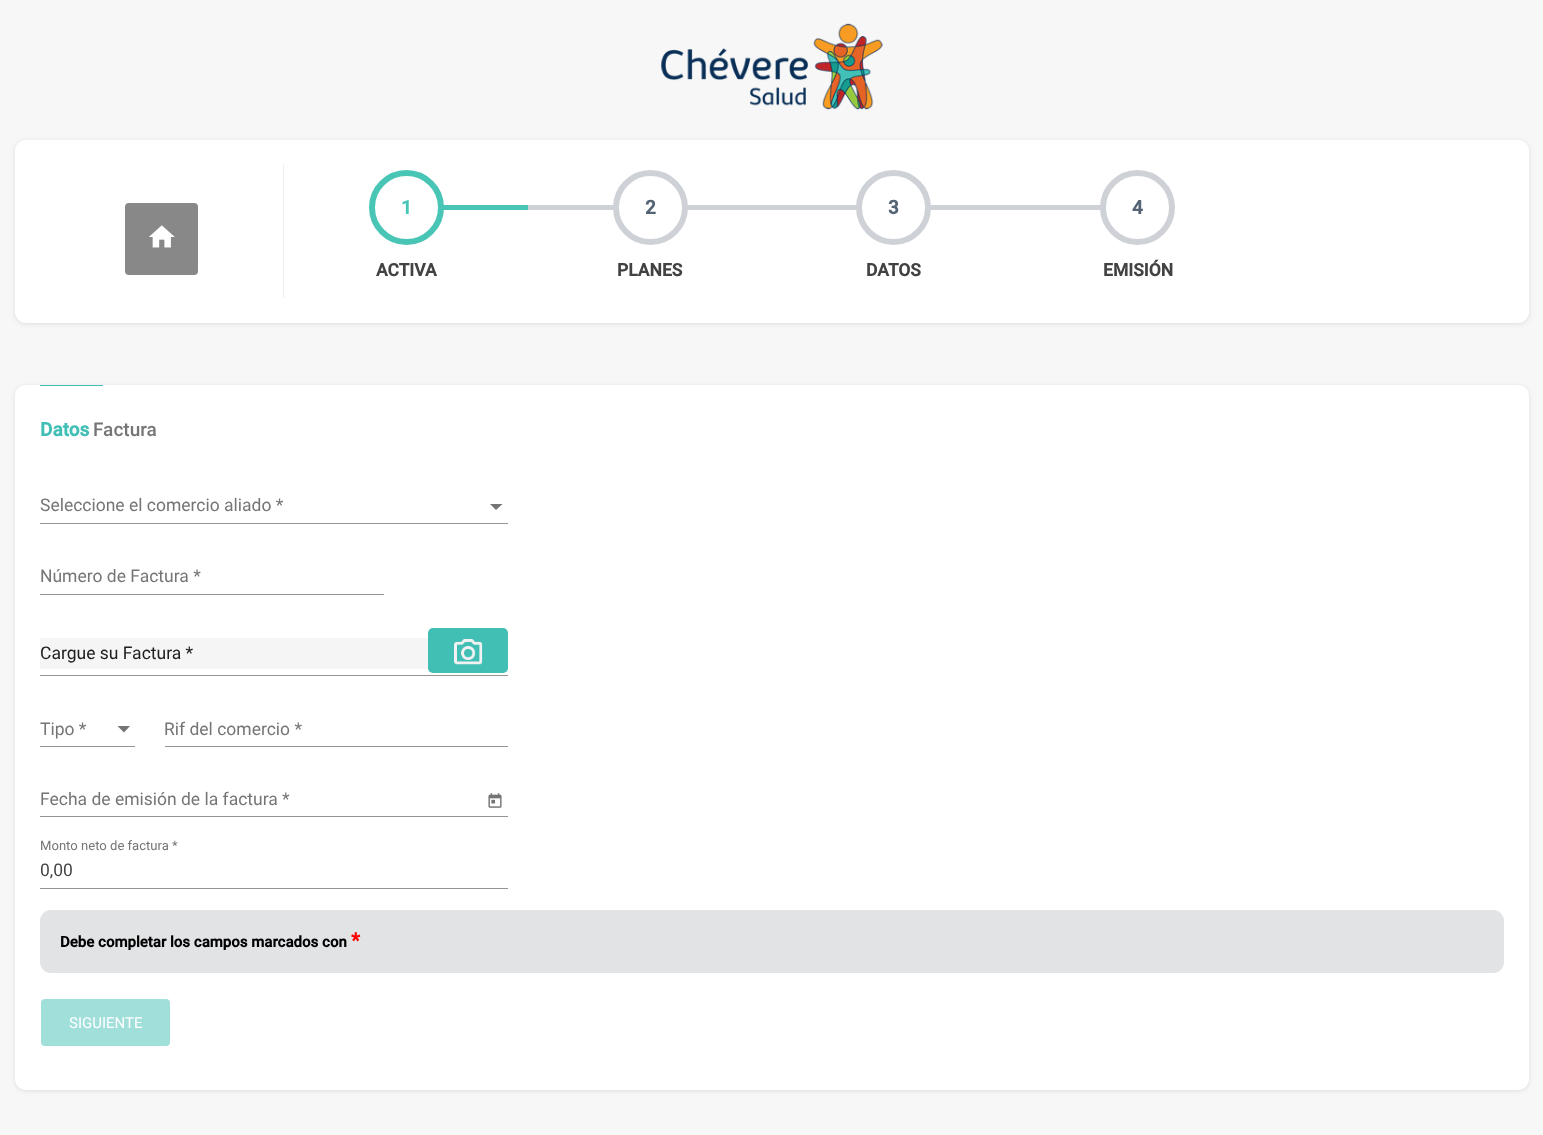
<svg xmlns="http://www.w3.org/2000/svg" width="1543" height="1135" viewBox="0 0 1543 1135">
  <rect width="100%" height="100%" fill="#f7f7f7"/>
  <image x="661" y="23" width="222" height="87" href="img/1.png"/>
  <rect x="15" y="141" width="1514" height="183" rx="11" fill="#0000001a" filter="blur(2.5px)"/>
  <rect x="15" y="140" width="1514" height="183" rx="11" fill="#fff"/>
  <path d="M283 165h1v133H283z" fill="#eee"/>
  <rect x="125" y="203" width="73" height="72" rx="4" fill="#888"/>
  <image x="149" y="225" width="26" height="23" href="img/2.png"/>
  <path d="M443 205h87v5H443z" fill="#49c5b6"/>
  <circle cx="406.5" cy="207.5" r="34.5" fill="#fff" stroke="#49c5b6" stroke-width="6"/>
  <path d="M528 205h573v5H528z" fill="#ced1d6"/>
  <circle cx="650.5" cy="207.5" r="34.5" fill="#fff" stroke="#ced1d6" stroke-width="6"/>
  <circle cx="893.5" cy="207.5" r="34.5" fill="#fff" stroke="#ced1d6" stroke-width="6"/>
  <circle cx="1137.5" cy="207.5" r="34.5" fill="#fff" stroke="#ced1d6" stroke-width="6"/>
  <rect x="15" y="386" width="1514" height="705" rx="11" fill="#0000001a" filter="blur(2.5px)"/>
  <rect x="15" y="385" width="1514" height="705" rx="11" fill="#fff"/>
  <path d="M40 385h63v1H40z" fill="#42bfb5"/>
  <path d="M490 504H502.5L496 510Z" fill="#757575"/>
  <path d="M40 523h468v1H40z" fill="#949494"/>
  <path d="M40 594h344v1H40z" fill="#949494"/>
  <path d="M40 638h468v31H40z" fill="#f5f5f5"/>
  <rect x="428" y="628" width="80" height="45" rx="5" fill="#42bfb5"/>
  <image x="454" y="639" width="29" height="26" href="img/3.png"/>
  <path d="M40 675h468v1H40z" fill="#949494"/>
  <path d="M117.5 726H130L124 732.5Z" fill="#757575"/>
  <path d="M40 746h95v1H40z" fill="#949494"/>
  <path d="M165 746h343v1H165z" fill="#949494"/>
  <image x="488" y="793" width="14" height="15" href="img/4.png"/>
  <path d="M40 816h468v1H40z" fill="#949494"/>
  <path d="M40 888h468v1H40z" fill="#949494"/>
  <rect x="40" y="910" width="1464" height="63" rx="11" fill="#e2e3e5"/>
  <rect x="41" y="999" width="129" height="47" rx="4" fill="#a1dfda"/>
  <text x="401" y="214" font-family="Roboto" font-size="19" font-weight="bold" fill="#49c5b6">1</text>
  <text x="376" y="276" font-family="Roboto" font-size="17.5" font-weight="bold" fill="#424242">ACTIVA</text>
  <text x="645" y="214" font-family="Roboto" font-size="19" font-weight="bold" fill="#546474">2</text>
  <text x="617" y="276" font-family="Roboto" font-size="17.5" font-weight="bold" fill="#424242">PLANES</text>
  <text x="888" y="214" font-family="Roboto" font-size="19" font-weight="bold" fill="#546474">3</text>
  <text x="866" y="276" font-family="Roboto" font-size="17.5" font-weight="bold" fill="#424242">DATOS</text>
  <text x="1132" y="214" font-family="Roboto" font-size="19" font-weight="bold" fill="#546474">4</text>
  <text x="1103" y="276" font-family="Roboto" font-size="17.5" font-weight="bold" fill="#424242">EMISIÓN</text>
  <text x="40" y="436" font-family="Roboto" font-size="19" font-weight="bold" fill="#42bfb5">Datos</text>
  <text x="93" y="436" font-family="Roboto" font-size="19" font-weight="500" fill="#757575">Factura</text>
  <g font-family="Roboto" font-size="17.5" fill="#757575">
    <text x="40" y="511">Seleccione el comercio aliado *</text>
    <text x="40" y="582">Número de Factura *</text>
  </g>
  <text x="40" y="659" font-family="Roboto" font-size="17.5" fill="#202020">Cargue su Factura *</text>
  <g font-family="Roboto" font-size="17.5" fill="#757575">
    <text x="40" y="735">Tipo *</text>
    <text x="164" y="735">Rif del comercio *</text>
    <text x="40" y="805">Fecha de emisión de la factura *</text>
  </g>
  <text x="40" y="850" font-family="Roboto" font-size="13.1" fill="#757575">Monto neto de factura *</text>
  <text x="40" y="876" font-family="Roboto" font-size="17.5" fill="#424242">0,00</text>
  <text x="60" y="947" font-family="Roboto" font-size="15" font-weight="bold" fill="#000">Debe completar los campos marcados con</text>
  <text x="351" y="947" font-family="Roboto" font-size="20" font-weight="bold" fill="#f00">*</text>
  <text x="69" y="1028" font-family="Roboto" font-size="15" fill="#fff">SIGUIENTE</text>
</svg>
